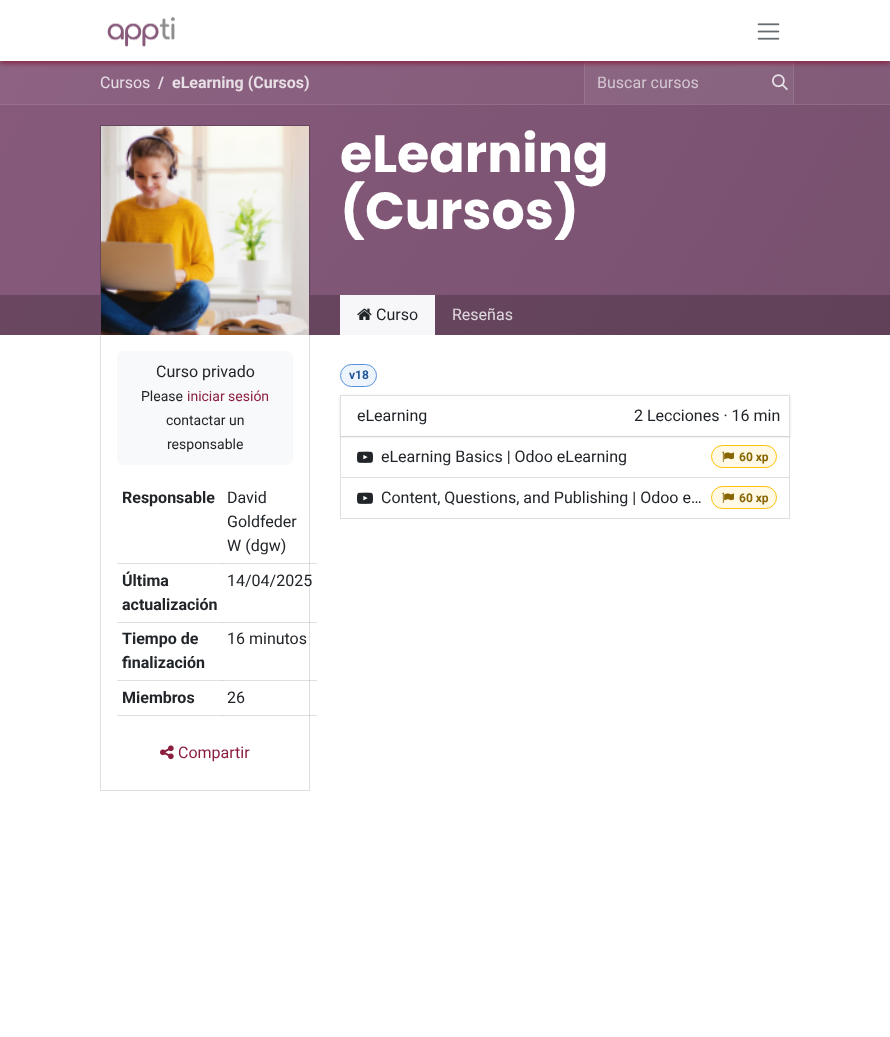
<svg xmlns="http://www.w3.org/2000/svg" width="890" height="1037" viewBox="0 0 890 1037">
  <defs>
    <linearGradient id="g1" gradientUnits="userSpaceOnUse" x1="52" y1="-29" x2="838" y2="425"><stop offset="0" stop-color="#8d6282"/><stop offset="1" stop-color="#7f5a76"/></linearGradient>
    <linearGradient id="g2" gradientUnits="userSpaceOnUse" x1="52" y1="-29" x2="838" y2="425"><stop offset="0" stop-color="#936a88"/><stop offset="1" stop-color="#85627d"/></linearGradient>
    <linearGradient id="g3" gradientUnits="userSpaceOnUse" x1="52" y1="-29" x2="838" y2="425"><stop offset="0" stop-color="#98728f"/><stop offset="1" stop-color="#8c6b84"/></linearGradient>
    <clipPath id="clip1"><path d="M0 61h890v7H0z"/></clipPath>
    <linearGradient id="g4" gradientUnits="userSpaceOnUse" x1="52" y1="-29" x2="838" y2="425"><stop offset="0" stop-color="#875a7b"/><stop offset="1" stop-color="#78516f"/></linearGradient>
    <linearGradient id="g5" gradientUnits="userSpaceOnUse" x1="52" y1="-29" x2="838" y2="425"><stop offset="0" stop-color="#6c4862"/><stop offset="1" stop-color="#604159"/></linearGradient>
    <clipPath id="clip2"><path d="M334 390H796V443H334ZM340 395H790V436H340Z" clip-rule="evenodd"/></clipPath>
  </defs>
  <rect width="100%" height="100%" fill="#fff"/>
  <path d="M0 62h890v42H0z" fill="url(#g1)"/>
  <path d="M585 62h208v42H585z" fill="url(#g2)"/>
  <path d="M0 61h890v1H0z" fill="url(#g3)"/>
  <path d="M793 62h1v42H793z" fill="#94738d"/>
  <path d="M584 62h1v42H584z" fill="#97758e"/>
  <g clip-path="url(#clip1)">
    <path d="M0 2h890v61H0z" fill="#871d3d" filter="blur(2.5px)"/>
  </g>
  <image x="107" y="16" width="68" height="31" href="img/1.png"/>
  <image x="757" y="23" width="23" height="17" href="img/2.png"/>
  <path d="M0 105h890v190H0z" fill="url(#g4)"/>
  <path d="M0 104h890v1H0z" fill="url(#g3)"/>
  <path d="M0 295h890v40H0z" fill="url(#g5)"/>
  <image x="772" y="74" width="16" height="17" href="img/3.png"/>
  <path d="M100 125h210v1H100z" fill="#68465f"/>
  <path d="M309 125h1v170H309z" fill="#68465f"/>
  <path d="M100 125h1v170H100z" fill="#68465f"/>
  <image x="101" y="126" width="208" height="209" href="img/4.png"/>
  <path d="M310 335V791L309 790V335Z" fill="#dededf"/>
  <path d="M310 791H100L101 790H309Z" fill="#21252926"/>
  <path d="M100 791V335H101V790Z" fill="#21252926"/>
  <rect x="117" y="351" width="176" height="114" rx="6" fill="#f8f9fa"/>
  <path d="M222 563h95v1H222z" fill="#21252926"/>
  <path d="M117 563h106v1H117z" fill="#21252926"/>
  <path d="M222 622h95v1H222z" fill="#21252926"/>
  <path d="M117 622h106v1H117z" fill="#21252926"/>
  <path d="M222 680h95v1H222z" fill="#21252926"/>
  <path d="M117 680h106v1H117z" fill="#21252926"/>
  <path d="M222 715h95v1H222z" fill="#21252926"/>
  <path d="M117 715h106v1H117z" fill="#21252926"/>
  <image x="160" y="745" width="14" height="15" href="img/5.png"/>
  <path d="M340 295h95v40H340z" fill="#f7f7fa"/>
  <image x="357" y="308" width="15" height="12" href="img/6.png"/>
  <rect x="340.5" y="364.5" width="36" height="22" rx="11" fill="#eef4fc" stroke="#5794dd"/>
  <path d="M340 436h450v1H340z" fill="#e1e1e2"/>
  <path d="M790 437V478L789 477V437Z" fill="#dededf"/>
  <path d="M790 478H340L341 477H789Z" fill="#21252926"/>
  <path d="M340 478V437H341V477Z" fill="#21252926"/>
  <g clip-path="url(#clip2)">
    <path d="M340 396h450v41H340z" fill="#0000001a" filter="blur(1.5px)"/>
  </g>
  <path d="M340 395H790L789 396H341Z" fill="#dededf"/>
  <path d="M790 395V436H789V396Z" fill="#21252926"/>
  <path d="M340 436V395L341 396V436Z" fill="#21252926"/>
  <image x="357" y="451" width="16" height="12" href="img/7.png"/>
  <rect x="711.5" y="445.5" width="65" height="22" rx="11" fill="#fff9e6" stroke="#ffc107"/>
  <image x="722" y="451" width="12" height="11" href="img/8.png"/>
  <path d="M790 478V519L789 518V478Z" fill="#dededf"/>
  <path d="M790 519H340L341 518H789Z" fill="#21252926"/>
  <path d="M340 519V478H341V518Z" fill="#21252926"/>
  <image x="357" y="492" width="16" height="12" href="img/7.png"/>
  <rect x="711.5" y="486.5" width="65" height="22" rx="11" fill="#fff9e6" stroke="#ffc107"/>
  <image x="722" y="492" width="12" height="11" href="img/8.png"/>
  <text x="100" y="88" font-family="Roboto" font-size="16" fill="#e8dfe6">Cursos</text>
  <g font-family="Roboto" font-size="16" font-weight="bold" fill="#e8dfe6">
    <text x="158" y="88">/</text>
    <text x="172" y="88">eLearning (Cursos)</text>
  </g>
  <text x="597" y="88" font-family="Roboto" font-size="16" fill="#d5c8d2">Buscar cursos</text>
  <g font-family="Poppins" font-size="52.25" font-weight="bold" fill="#fff">
    <text x="340" y="172">eLearning</text>
    <text x="340" y="229">(Cursos)</text>
  </g>
  <text x="156" y="377" font-family="Roboto" font-size="16" fill="#212529">Curso privado</text>
  <text x="141" y="401" font-family="Roboto" font-size="14" fill="#212529">Please</text>
  <text x="187" y="401" font-family="Roboto" font-size="14" fill="#8b1e3f">iniciar sesión</text>
  <g font-family="Roboto" font-size="14" fill="#212529">
    <text x="166" y="425">contactar un</text>
    <text x="167" y="449">responsable</text>
  </g>
  <text x="122" y="503" font-family="Roboto" font-size="16" font-weight="bold" fill="#212529">Responsable</text>
  <g font-family="Roboto" font-size="16" fill="#212529">
    <text x="227" y="503">David</text>
    <text x="227" y="527">Goldfeder</text>
    <text x="227" y="551">W (dgw)</text>
  </g>
  <g font-family="Roboto" font-size="16" font-weight="bold" fill="#212529">
    <text x="122" y="586">Última</text>
    <text x="122" y="610">actualización</text>
  </g>
  <text x="227" y="586" font-family="Roboto" font-size="16" fill="#212529">14/04/2025</text>
  <g font-family="Roboto" font-size="16" font-weight="bold" fill="#212529">
    <text x="122" y="644">Tiempo de</text>
    <text x="122" y="668">finalización</text>
  </g>
  <text x="227" y="644" font-family="Roboto" font-size="16" fill="#212529">16 minutos</text>
  <text x="122" y="703" font-family="Roboto" font-size="16" font-weight="bold" fill="#212529">Miembros</text>
  <text x="227" y="703" font-family="Roboto" font-size="16" fill="#212529">26</text>
  <text x="178" y="758" font-family="Roboto" font-size="16" fill="#8b1e3f">Compartir</text>
  <text x="376" y="320" font-family="Roboto" font-size="16" fill="#212529">Curso</text>
  <text x="452" y="320" font-family="Roboto" font-size="16" fill="#e0dadf">Reseñas</text>
  <text x="349" y="379" font-family="Roboto" font-size="12" font-weight="bold" fill="#1e5596">v18</text>
  <g font-family="Roboto" font-size="16" fill="#212529">
    <text x="357" y="421">eLearning</text>
    <text x="634" y="421">2 Lecciones · 16 min</text>
    <text x="381" y="462">eLearning Basics | Odoo eLearning</text>
  </g>
  <text x="739" y="461" font-family="Roboto" font-size="12" font-weight="bold" fill="#876500">60 xp</text>
  <text x="381" y="503" font-family="Roboto" font-size="16" fill="#212529">Content, Questions, and Publishing | Odoo e…</text>
  <text x="739" y="502" font-family="Roboto" font-size="12" font-weight="bold" fill="#876500">60 xp</text>
</svg>
